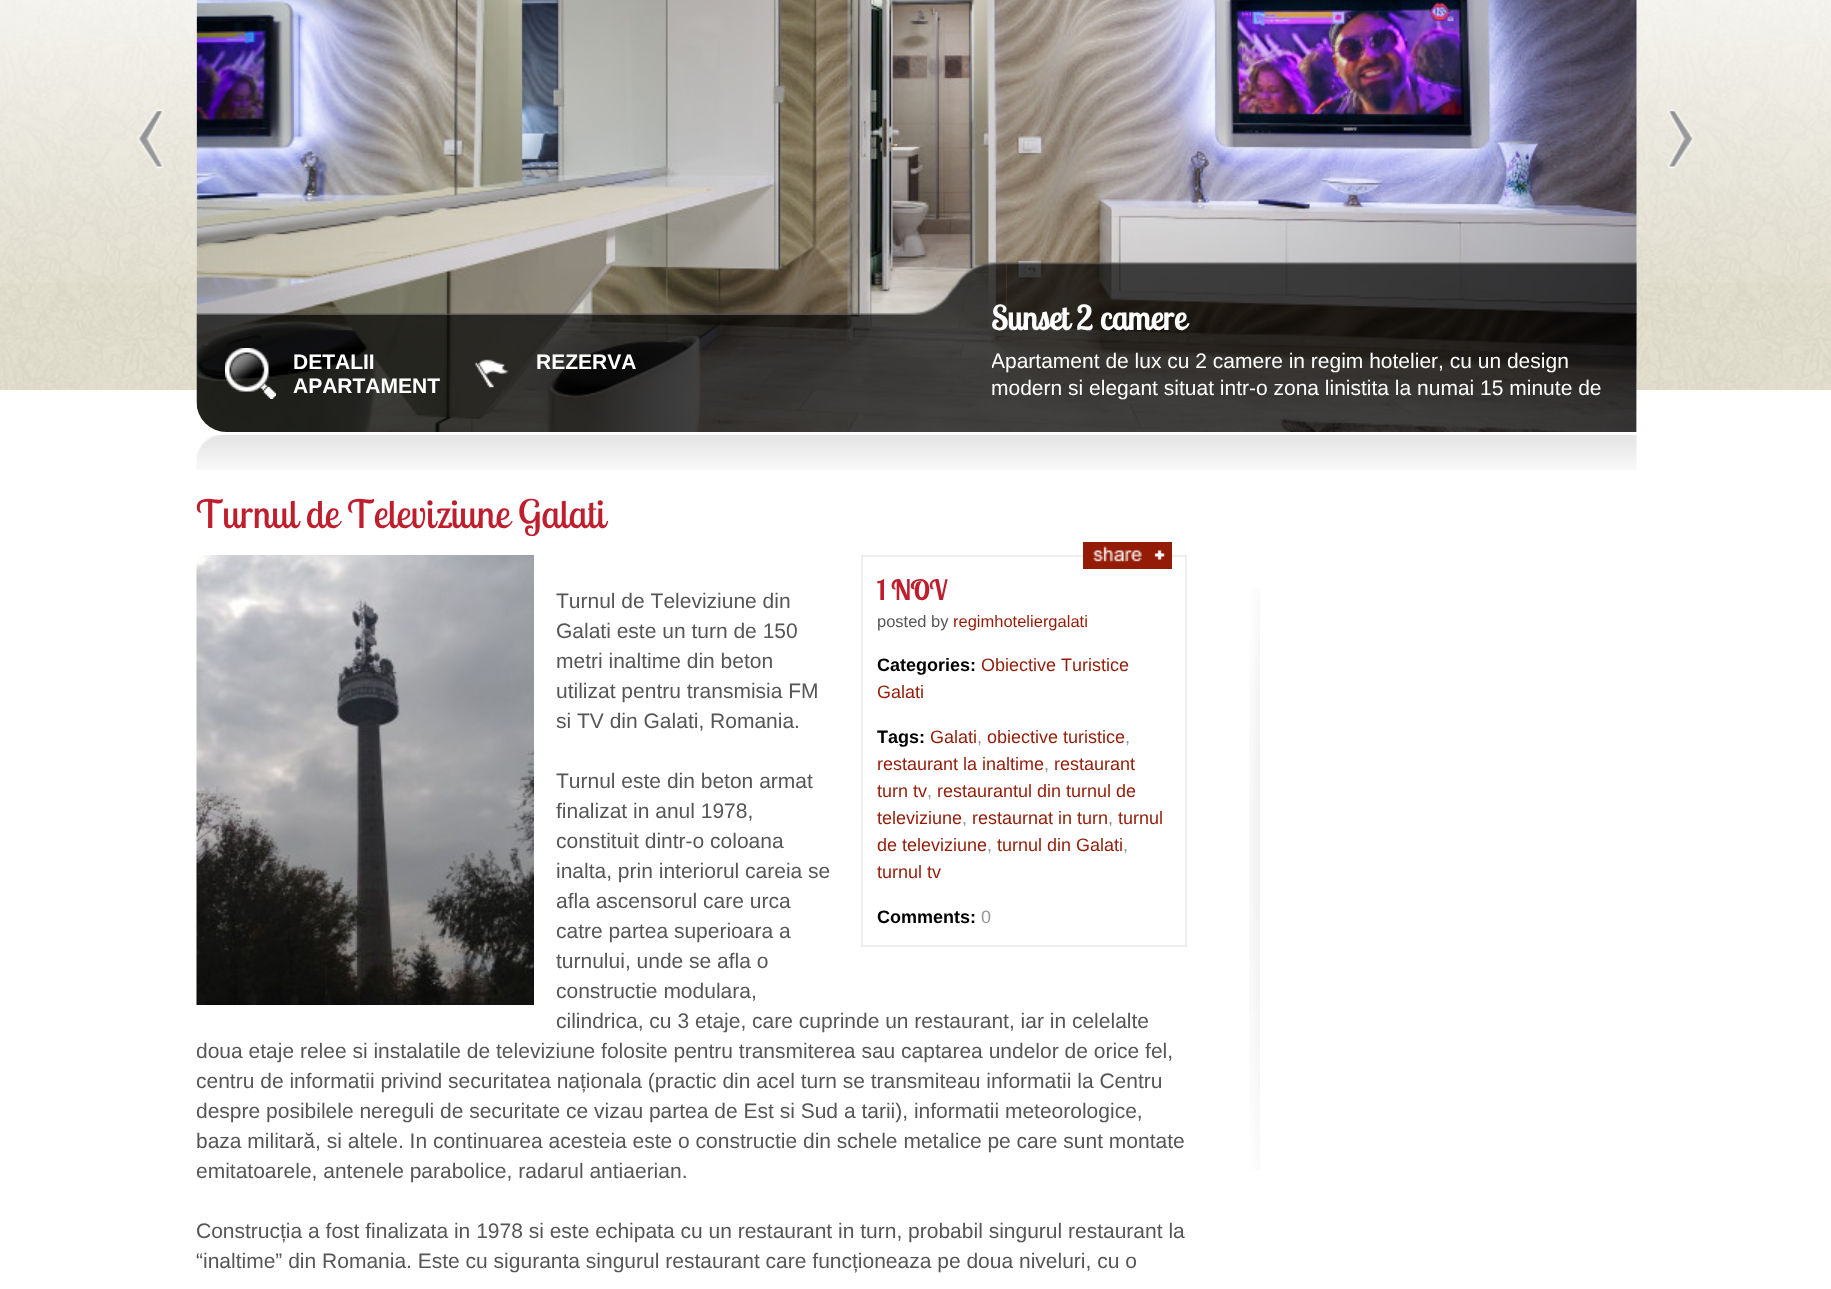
<svg xmlns="http://www.w3.org/2000/svg" width="1831" height="1289" viewBox="0 0 1831 1289">
  <style>*{font-kerning:none!important;font-variant-ligatures:none!important}</style>
  <defs>
    <clipPath id="clip1"><path d="M992 347h615v54H992z"/></clipPath>
  </defs>
  <rect width="100%" height="100%" fill="#e4e1d0"/>
  <image x="0" y="0" width="1831" height="390" href="img/1.png"/>
  <image x="0" y="0" width="1831" height="283" href="img/2.png"/>
  <image x="137" y="109" width="27" height="60" href="img/3.png"/>
  <path d="M0 390h1831v899H0z" fill="#fff"/>
  <image x="196" y="0" width="1441" height="432" href="img/4.png"/>
  <image x="1667" y="109" width="27" height="60" href="img/5.png"/>
  <image x="196" y="262" width="811" height="53" href="img/6.png"/>
  <image x="1006" y="262" width="631" height="53" href="img/7.png"/>
  <image x="196" y="315" width="1441" height="117" href="img/8.png"/>
  <image x="225" y="348" width="51" height="51" href="img/9.png"/>
  <image x="475" y="359" width="34" height="29" href="img/10.png"/>
  <image x="196" y="435" width="1441" height="35" href="img/11.png"/>
  <image x="1249" y="588" width="11" height="581" href="img/12.png"/>
  <path d="M862 556h324v390H862z" fill="none" stroke="#eee" stroke-width="2"/>
  <path d="M1083 542h89v27H1083z" fill="#941b06"/>
  <image x="1093" y="545" width="72" height="17" href="img/13.png"/>
  <image x="196" y="555" width="338" height="450" href="img/14.png"/>
  <g font-family="Liberation Sans" font-size="21" font-weight="bold" fill="#fff">
    <text x="293" y="369">DETALII</text>
    <text x="293" y="393">APARTAMENT</text>
    <text x="536" y="369">REZERVA</text>
  </g>
  <text x="991" y="330" font-family="Lobster Two" font-size="33" font-weight="bold" fill="#fff">Sunset 2 camere</text>
  <g clip-path="url(#clip1)">
    <text x="991" y="368" font-family="Liberation Sans" font-size="21" fill="#fff">Apartament de lux cu 2 camere in regim hotelier, cu un design</text>
  </g>
  <text x="991" y="395" font-family="Liberation Sans" font-size="21" fill="#fff">modern si elegant situat intr-o zona linistita la numai 15 minute de</text>
  <text x="196" y="528" font-family="Lobster Two" font-size="39" fill="#bf1e2d">Turnul de Televiziune</text>
  <text x="518" y="528" font-family="Lobster Two" font-size="39" fill="#bf1e2d">Galati</text>
  <text x="877" y="600" font-family="Lobster Two" font-size="27" font-weight="bold" fill="#bf1e2d">1 NOV</text>
  <text x="877" y="627" font-family="Liberation Sans" font-size="16.5" fill="#575557">posted by</text>
  <text x="953" y="627" font-family="Liberation Sans" font-size="16.5" fill="#941b06">regimhoteliergalati</text>
  <text x="877" y="671" font-family="Liberation Sans" font-size="18" font-weight="bold" fill="#000">Categories:</text>
  <g font-family="Liberation Sans" font-size="18" fill="#941b06">
    <text x="981" y="671">Obiective Turistice</text>
    <text x="877" y="698">Galati</text>
  </g>
  <text x="877" y="743" font-family="Liberation Sans" font-size="18" font-weight="bold" fill="#000">Tags:</text>
  <text x="930" y="743" font-family="Liberation Sans" font-size="18" fill="#941b06">Galati</text>
  <text x="977" y="743" font-family="Liberation Sans" font-size="18" fill="#959595">,</text>
  <text x="987" y="743" font-family="Liberation Sans" font-size="18" fill="#941b06">obiective turistice</text>
  <text x="1125" y="743" font-family="Liberation Sans" font-size="18" fill="#959595">,</text>
  <text x="877" y="770" font-family="Liberation Sans" font-size="18" fill="#941b06">restaurant la inaltime</text>
  <text x="1044" y="770" font-family="Liberation Sans" font-size="18" fill="#959595">,</text>
  <g font-family="Liberation Sans" font-size="18" fill="#941b06">
    <text x="1054" y="770">restaurant</text>
    <text x="877" y="797">turn tv</text>
  </g>
  <text x="927" y="797" font-family="Liberation Sans" font-size="18" fill="#959595">,</text>
  <g font-family="Liberation Sans" font-size="18" fill="#941b06">
    <text x="937" y="797">restaurantul din turnul de</text>
    <text x="877" y="824">televiziune</text>
  </g>
  <text x="962" y="824" font-family="Liberation Sans" font-size="18" fill="#959595">,</text>
  <text x="972" y="824" font-family="Liberation Sans" font-size="18" fill="#941b06">restaurnat in turn</text>
  <text x="1108" y="824" font-family="Liberation Sans" font-size="18" fill="#959595">,</text>
  <g font-family="Liberation Sans" font-size="18" fill="#941b06">
    <text x="1118" y="824">turnul</text>
    <text x="877" y="851">de televiziune</text>
  </g>
  <text x="987" y="851" font-family="Liberation Sans" font-size="18" fill="#959595">,</text>
  <text x="997" y="851" font-family="Liberation Sans" font-size="18" fill="#941b06">turnul din Galati</text>
  <text x="1123" y="851" font-family="Liberation Sans" font-size="18" fill="#959595">,</text>
  <text x="877" y="878" font-family="Liberation Sans" font-size="18" fill="#941b06">turnul tv</text>
  <text x="877" y="923" font-family="Liberation Sans" font-size="18" font-weight="bold" fill="#000">Comments:</text>
  <text x="981" y="923" font-family="Liberation Sans" font-size="18" fill="#959595">0</text>
  <g font-family="Liberation Sans" font-size="21" fill="#575557">
    <text x="556" y="608">Turnul de Televiziune din</text>
    <text x="556" y="638">Galati este un turn de 150</text>
    <text x="556" y="668">metri inaltime din beton</text>
    <text x="556" y="698">utilizat pentru transmisia FM</text>
    <text x="556" y="728">si TV din Galati, Romania.</text>
    <text x="556" y="788">Turnul este din beton armat</text>
    <text x="556" y="818">finalizat in anul 1978,</text>
    <text x="556" y="848">constituit dintr-o coloana</text>
    <text x="556" y="878">inalta, prin interiorul careia se</text>
    <text x="556" y="908">afla ascensorul care urca</text>
    <text x="556" y="938">catre partea superioara a</text>
    <text x="556" y="968">turnului, unde se afla o</text>
    <text x="556" y="998">constructie modulara,</text>
    <text x="556" y="1028">cilindrica, cu 3 etaje, care cuprinde un restaurant, iar in celelalte</text>
    <text x="196" y="1058">doua etaje relee si instalatile de televiziune folosite pentru transmiterea sau captarea undelor de orice fel,</text>
    <text x="196" y="1088">centru de informatii privind securitatea naționala (practic din acel turn se transmiteau informatii la Centru</text>
    <text x="196" y="1118">despre posibilele nereguli de securitate ce vizau partea de Est si Sud a tarii), informatii meteorologice,</text>
    <text x="196" y="1148">baza militară, si altele. In continuarea acesteia este o constructie din schele metalice pe care sunt montate</text>
    <text x="196" y="1178">emitatoarele, antenele parabolice, radarul antiaerian.</text>
    <text x="196" y="1238">Construcția a fost finalizata in 1978 si este echipata cu un restaurant in turn, probabil singurul restaurant la</text>
    <text x="196" y="1268">“inaltime” din Romania. Este cu siguranta singurul restaurant care funcționeaza pe doua niveluri, cu o</text>
  </g>
</svg>
